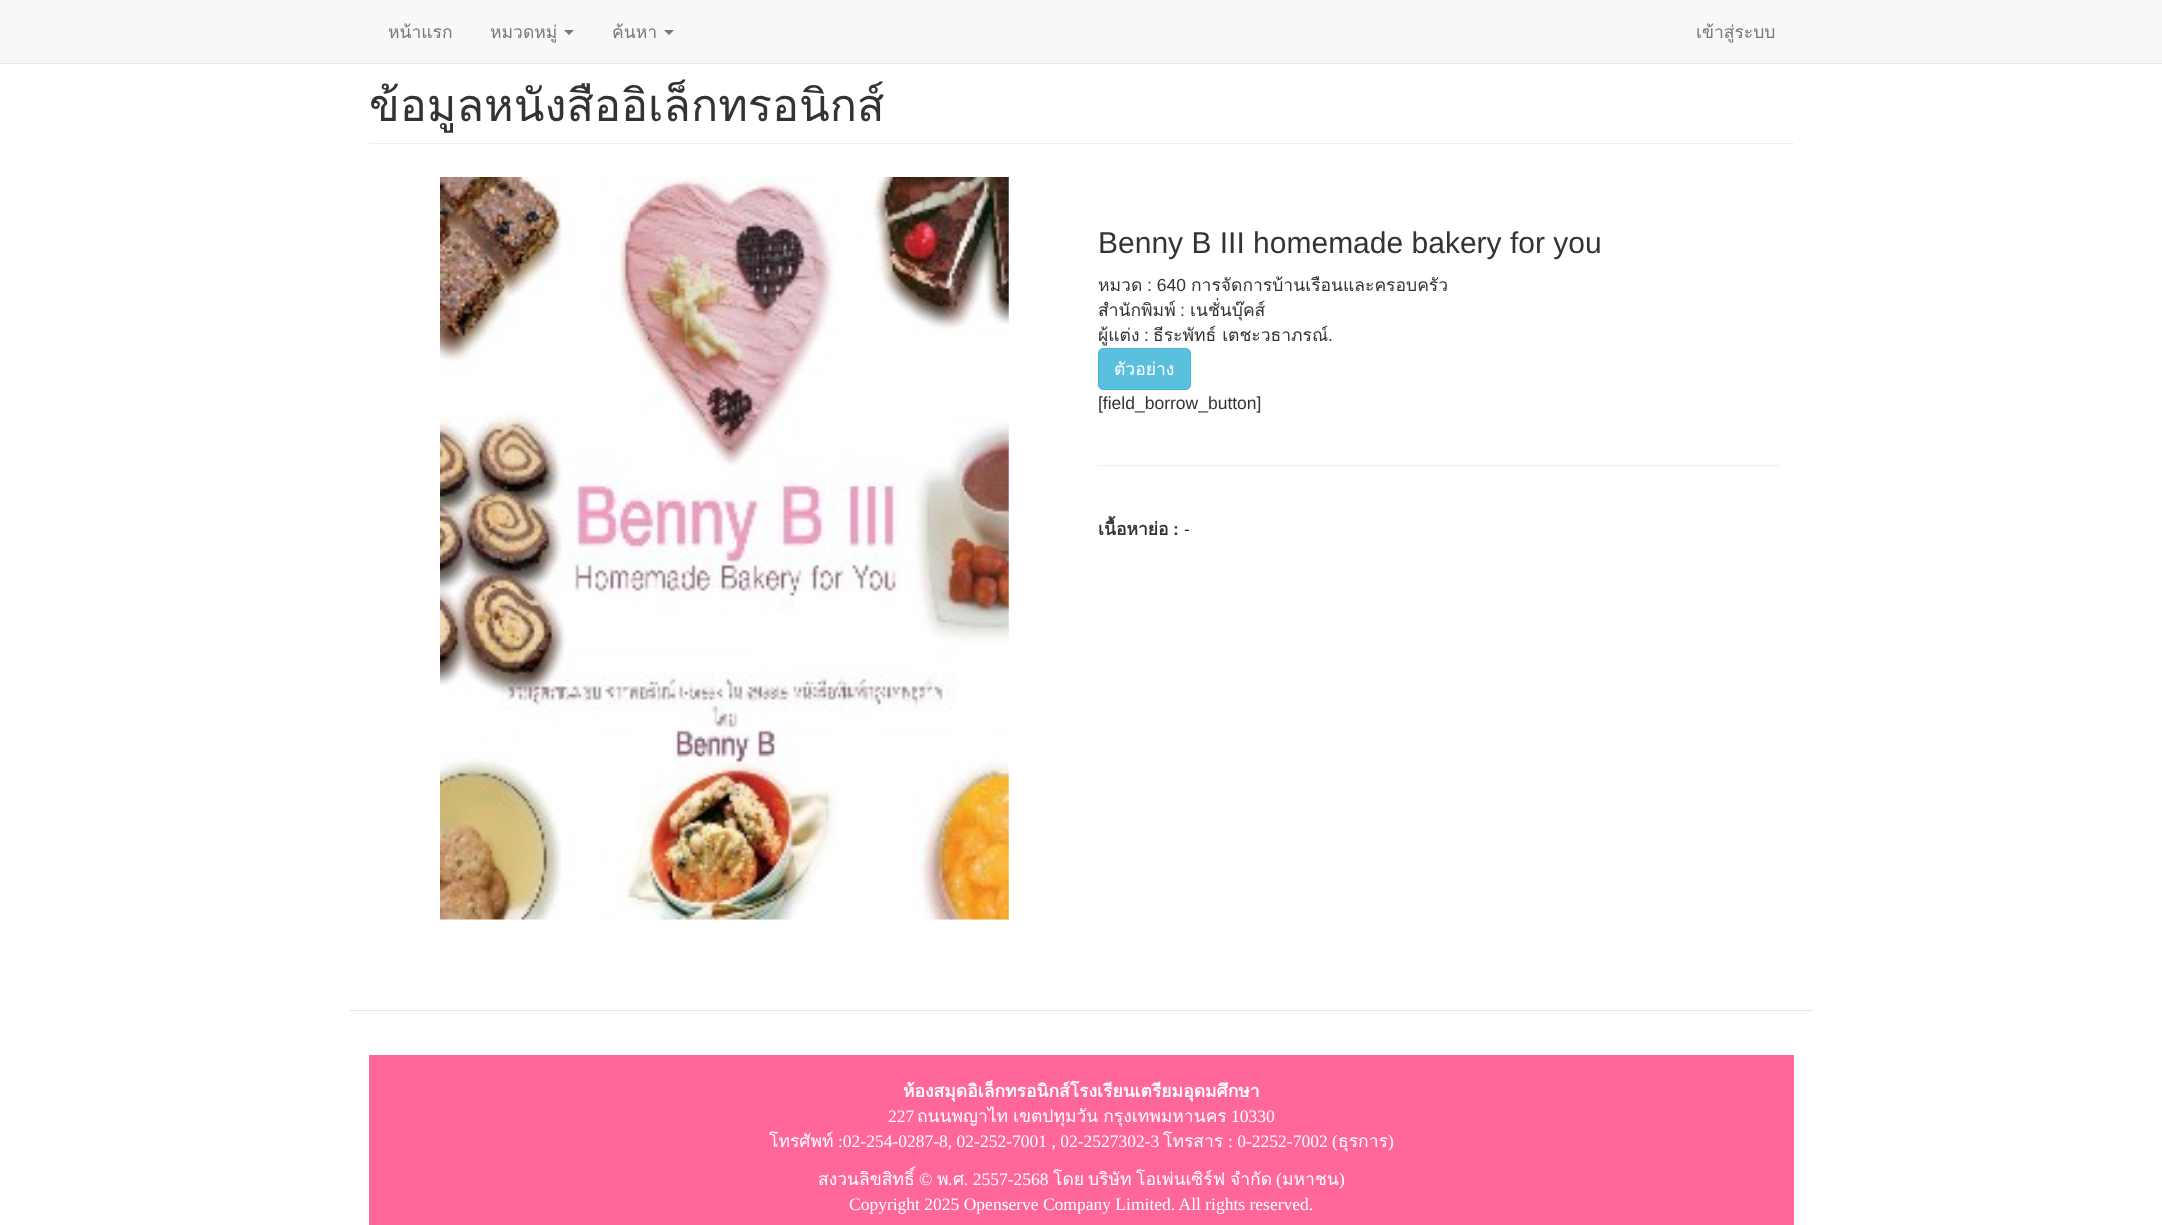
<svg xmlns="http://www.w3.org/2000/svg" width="2162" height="1225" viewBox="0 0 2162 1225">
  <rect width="100%" height="100%" fill="#fff"/>
  <path d="M0 0h2162v63H0z" fill="#f8f8f8"/>
  <path d="M0 63h2162v1H0z" fill="#e7e7e7"/>
  <path d="M564 30H574L569 35Z" fill="#777"/>
  <path d="M664 30H674L669 35Z" fill="#777"/>
  <path d="M369 143h1425v1H369z" fill="#eee"/>
  <image x="440" y="177" width="569" height="743" href="img/1.png"/>
  <rect x="1098.5" y="348.5" width="92" height="41" rx="4.5" fill="#5bc0de" stroke="#46b8da"/>
  <path d="M1098 465h682v1H1098z" fill="#eee"/>
  <path d="M350 1010h1463v1H350z" fill="#e5e5e5"/>
  <path d="M369 1055h1425v170H369z" fill="#f69"/>
  <g font-family="Loma" font-size="17.5" fill="#777">
    <text x="388" y="38">หน้าแรก</text>
    <text x="490" y="38">หมวดหมู่</text>
    <text x="612" y="38">ค้นหา</text>
    <text x="1696" y="38">เข้าสู่ระบบ</text>
  </g>
  <text x="369" y="121" font-family="Loma" font-size="45" fill="#333">ข้อมูลหนังสืออิเล็กทรอนิกส์</text>
  <text x="1098" y="253" font-family="Liberation Sans" font-size="30" fill="#333">Benny B III homemade bakery for you</text>
  <text x="1098" y="291" font-family="Loma" font-size="17.5" fill="#333">หมวด</text>
  <text x="1147" y="291" font-family="Liberation Sans" font-size="17.5" fill="#333">: 640</text>
  <g font-family="Loma" font-size="17.5" fill="#333">
    <text x="1191" y="291">การจัดการบ้านเรือนและครอบครัว</text>
    <text x="1098" y="316">สำนักพิมพ์</text>
  </g>
  <text x="1180" y="316" font-family="Liberation Sans" font-size="17.5" fill="#333">:</text>
  <g font-family="Loma" font-size="17.5" fill="#333">
    <text x="1190" y="316">เนชั่นบุ๊คส์</text>
    <text x="1098" y="341">ผู้แต่ง</text>
  </g>
  <text x="1144" y="341" font-family="Liberation Sans" font-size="17.5" fill="#333">:</text>
  <text x="1153" y="341" font-family="Loma" font-size="17.5" fill="#333">ธีระพัทธ์ เตชะวธาภรณ์</text>
  <text x="1328" y="341" font-family="Liberation Sans" font-size="17.5" fill="#333">.</text>
  <text x="1114" y="375" font-family="Loma" font-size="17.5" fill="#fff">ตัวอย่าง</text>
  <text x="1098" y="409" font-family="Liberation Sans" font-size="17.5" fill="#333">[field_borrow_button]</text>
  <text x="1098" y="535" font-family="Loma" font-size="17.5" font-weight="bold" fill="#333">เนื้อหาย่อ</text>
  <text x="1173" y="535" font-family="Liberation Sans" font-size="17.5" font-weight="bold" fill="#333">:</text>
  <text x="1184" y="535" font-family="Liberation Sans" font-size="17.5" fill="#333">-</text>
  <text x="903" y="1097" font-family="Loma" font-size="17.5" font-weight="bold" fill="#fff">ห้องสมุดอิเล็กทรอนิกส์โรงเรียนเตรียมอุดมศึกษา</text>
  <text x="888" y="1122" font-family="Liberation Serif" font-size="17.5" fill="#fff">227</text>
  <text x="917" y="1122" word-spacing="-1" font-family="Loma" font-size="17.5" fill="#fff">ถนนพญาไท เขตปทุมวัน กรุงเทพมหานคร</text>
  <text x="1231" y="1122" font-family="Liberation Serif" font-size="17.5" fill="#fff">10330</text>
  <text x="769" y="1147" font-family="Loma" font-size="17.5" fill="#fff">โทรศัพท์</text>
  <text x="838" y="1147" font-family="Liberation Serif" font-size="17.5" fill="#fff">:02-254-0287-8, 02-252-7001 , 02-2527302-3</text>
  <text x="1163" y="1147" font-family="Loma" font-size="17.5" fill="#fff">โทรสาร</text>
  <text x="1228" y="1147" font-family="Liberation Serif" font-size="17.5" fill="#fff">: 0-2252-7002 (</text>
  <text x="1338" y="1147" font-family="Loma" font-size="17.5" fill="#fff">ธุรการ</text>
  <text x="1388" y="1147" font-family="Liberation Serif" font-size="17.5" fill="#fff">)</text>
  <text x="818" y="1185" font-family="Loma" font-size="17.5" fill="#fff">สงวนลิขสิทธิ์</text>
  <text x="919" y="1185" font-family="Liberation Serif" font-size="17.5" fill="#fff">©</text>
  <text x="937" y="1185" font-family="Loma" font-size="17.5" fill="#fff">พ</text>
  <text x="948" y="1185" font-family="Liberation Serif" font-size="17.5" fill="#fff">.</text>
  <text x="953" y="1185" font-family="Loma" font-size="17.5" fill="#fff">ศ</text>
  <text x="964" y="1185" font-family="Liberation Serif" font-size="17.5" fill="#fff">. 2557-2568</text>
  <g font-family="Loma" font-size="17.5" fill="#fff">
    <text x="1053" y="1185">โดย</text>
    <text x="1088" y="1185">บริษัท</text>
    <text x="1136" y="1185">โอเพ่นเซิร์ฟ</text>
    <text x="1230" y="1185">จำกัด</text>
  </g>
  <text x="1276" y="1185" font-family="Liberation Serif" font-size="17.5" fill="#fff">(</text>
  <text x="1282" y="1185" font-family="Loma" font-size="17.5" fill="#fff">มหาชน</text>
  <g font-family="Liberation Serif" font-size="17.5" fill="#fff">
    <text x="1339" y="1185">)</text>
    <text x="849" y="1210">Copyright 2025 Openserve Company Limited. All rights reserved.</text>
  </g>
</svg>
